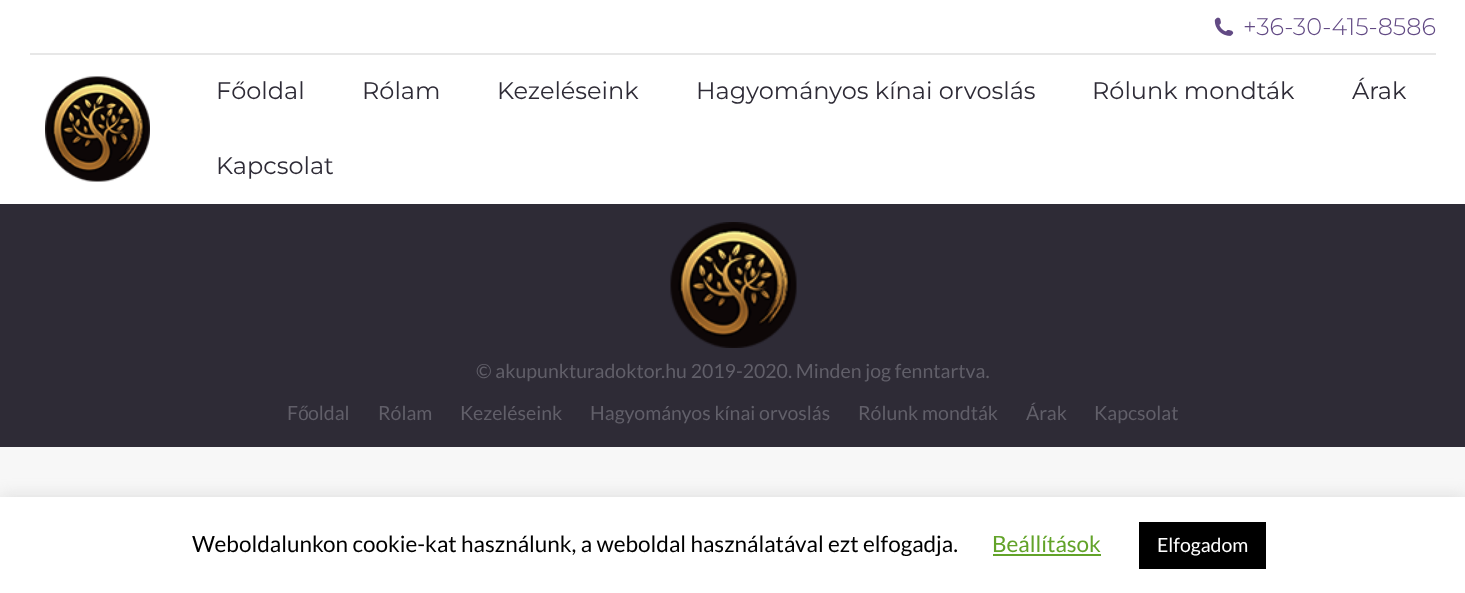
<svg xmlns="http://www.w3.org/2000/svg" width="1465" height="593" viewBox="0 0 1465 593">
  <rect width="100%" height="100%" fill="#f7f7f7"/>
  <path d="M0 0h1465v204H0z" fill="#fff"/>
  <image x="1214" y="17" width="20" height="19" href="img/1.png"/>
  <path d="M30 53h1406v2H30z" fill="#e7e7e7"/>
  <image x="45" y="76" width="105" height="106" href="img/2.png"/>
  <path d="M0 204h1465v243H0z" fill="#2e2b36"/>
  <image x="670" y="222" width="127" height="126" href="img/3.png"/>
  <path d="M0 495h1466v98H0z" fill="#acabab4d" filter="blur(7.5px)"/>
  <path d="M0 497h1465v96H0z" fill="#fff"/>
  <path d="M993 554h108v2H993z" fill="#62a329"/>
  <path d="M1139 522h127v47H1139z" fill="#000"/>
  <text x="1243" y="35" font-family="Montserrat" font-size="24" font-weight="300" fill="#624a84">+36-30-415-8586</text>
  <g font-family="Montserrat" font-size="24" fill="#2e2b36">
    <text x="216" y="99">Főoldal</text>
    <text x="362" y="99">Rólam</text>
    <text x="497" y="99">Kezeléseink</text>
    <text x="696" y="99">Hagyományos kínai orvoslás</text>
    <text x="1092" y="99">Rólunk mondták</text>
    <text x="1352" y="99">Árak</text>
    <text x="216" y="174">Kapcsolat</text>
  </g>
  <g font-family="Lato" font-size="19.5" fill="#615f69">
    <text x="476" y="378">© akupunkturadoktor.hu 2019-2020. Minden jog fenntartva.</text>
    <text x="287" y="420">F</text>
  </g>
  <text x="298" y="420" font-family="Liberation Sans" font-size="19.5" fill="#615f69">ő</text>
  <g font-family="Lato" font-size="19.5" fill="#615f69">
    <text x="308" y="420">oldal</text>
    <text x="378" y="420">Rólam</text>
    <text x="460" y="420">Kezeléseink</text>
    <text x="590" y="420">Hagyományos kínai orvoslás</text>
    <text x="858" y="420">Rólunk mondták</text>
    <text x="1026" y="420">Árak</text>
    <text x="1094" y="420">Kapcsolat</text>
  </g>
  <text x="192" y="552" font-family="Lato" font-size="22.5" fill="#000">Weboldalunkon cookie-kat használunk, a weboldal használatával ezt elfogadja.</text>
  <text x="992" y="552" font-family="Lato" font-size="22.5" fill="#62a329">Beállítások</text>
  <text x="1157" y="552" font-family="Lato" font-size="19.5" fill="#fff">Elfogadom</text>
</svg>
